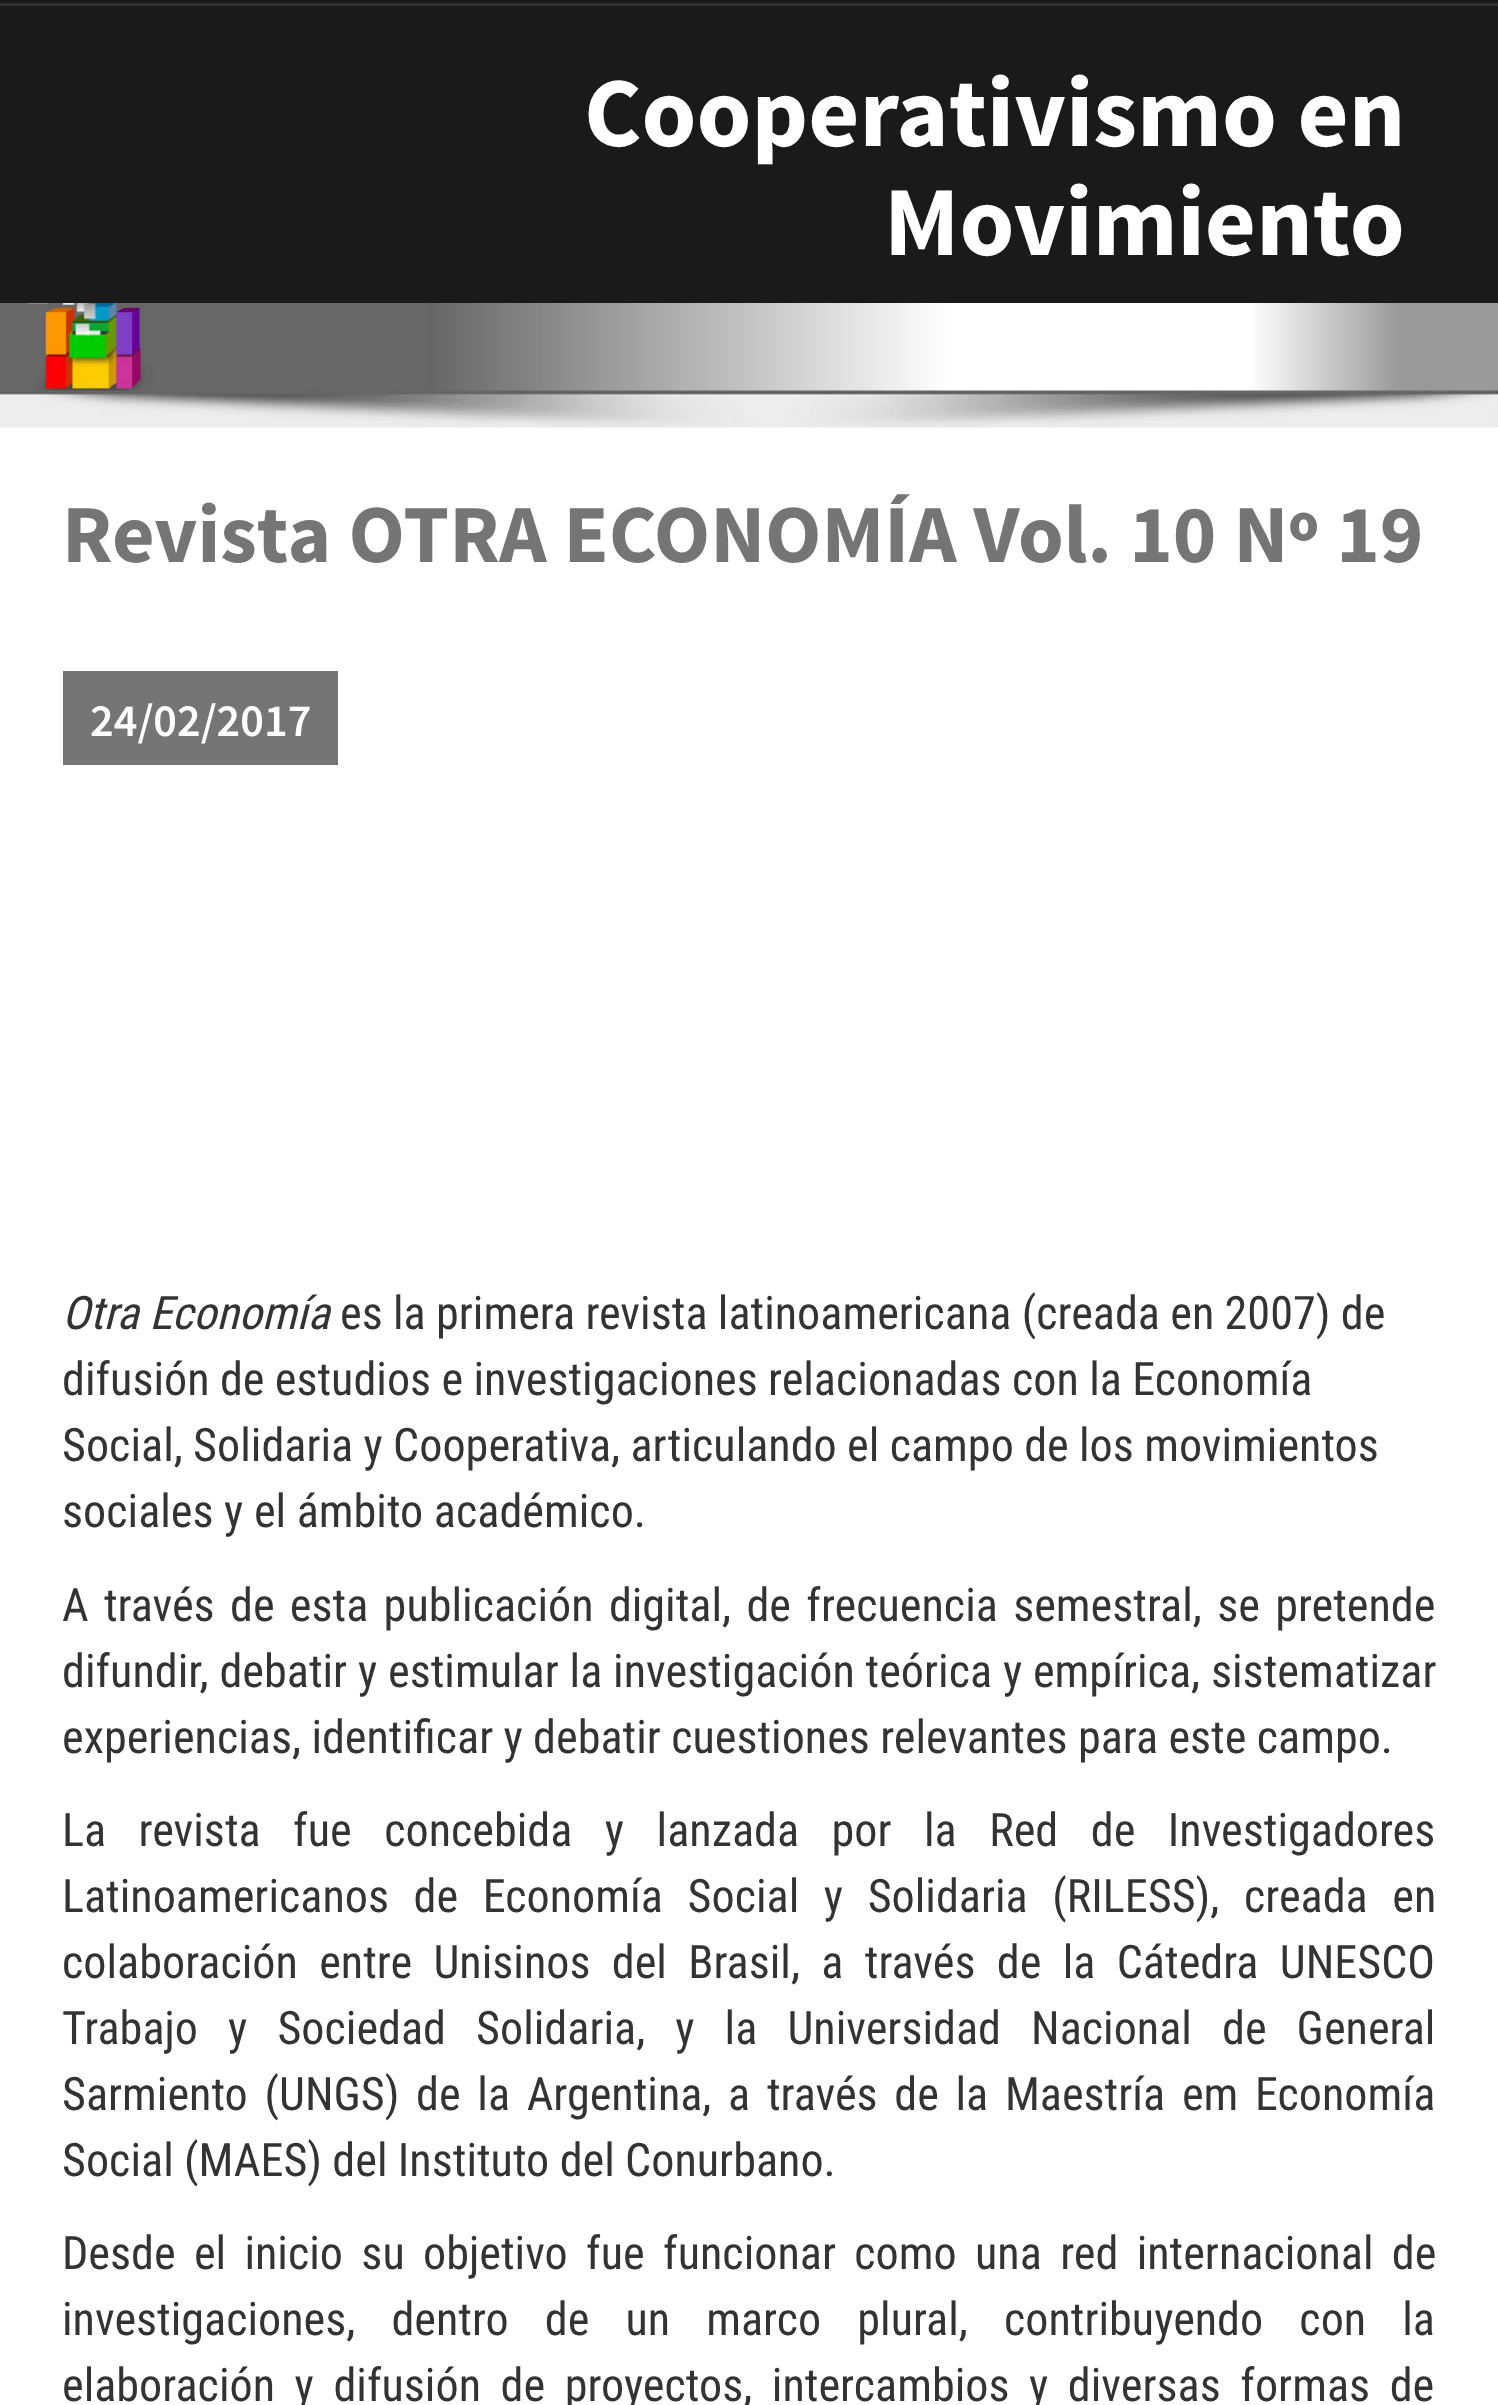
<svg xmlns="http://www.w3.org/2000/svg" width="1498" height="2405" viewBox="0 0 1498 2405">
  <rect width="100%" height="100%" fill="#fff"/>
  <path d="M0 0h1498v303H0z" fill="#1a1a1a"/>
  <path d="M0 3h1498v3H0z" fill="#313131"/>
  <image x="0" y="303" width="1498" height="125" href="img/1.png"/>
  <path d="M63 671h275v94H63z" fill="#757575"/>
  <g font-family="Source Sans Pro" font-size="99" font-weight="bold" fill="#fff">
    <text x="584" y="146">Cooperativismo en</text>
    <text x="884" y="255">Movimiento</text>
  </g>
  <text x="62" y="562" font-family="Source Sans Pro" font-size="82.5" font-weight="bold" fill="#757575">Revista OTRA ECONOMÍA Vol. 10 Nº 19</text>
  <text x="90" y="736" font-family="Source Sans Pro" font-size="46.2" font-weight="600" fill="#fff">24/02/2017</text>
  <text x="62" y="1329" font-family="Roboto Condensed" font-size="46.2" font-style="italic" fill="#333">Otra Economía</text>
  <g font-family="Roboto Condensed" font-size="46.2" fill="#333">
    <text x="340" y="1329" word-spacing="-0.25">es la primera revista latinoamericana (creada en 2007) de</text>
    <text x="62" y="1395" word-spacing="-0.25">difusión de estudios e investigaciones relacionadas con la Economía</text>
    <text x="62" y="1461" word-spacing="-0.25">Social, Solidaria y Cooperativa, articulando el campo de los movimientos</text>
    <text x="62" y="1527">sociales y el ámbito académico.</text>
    <text x="62" y="1621" word-spacing="4.75">A través de esta publicación digital, de frecuencia semestral, se pretende</text>
    <text x="62" y="1687" word-spacing="0.25">difundir, debatir y estimular la investigación teórica y empírica, sistematizar</text>
    <text x="62" y="1753" word-spacing="-0.25">experiencias, identificar y debatir cuestiones relevantes para este campo.</text>
    <text x="62" y="1846" word-spacing="21.9">La revista fue concebida y lanzada por la Red de Investigadores</text>
    <text x="62" y="1912" word-spacing="14">Latinoamericanos de Economía Social y Solidaria (RILESS), creada en</text>
    <text x="62" y="1978" word-spacing="10.75">colaboración entre Unisinos del Brasil, a través de la Cátedra UNESCO</text>
    <text x="62" y="2044" word-spacing="19.5">Trabajo y Sociedad Solidaria, y la Universidad Nacional de General</text>
    <text x="62" y="2110" word-spacing="6.1">Sarmiento (UNGS) de la Argentina, a través de la Maestría em Economía</text>
    <text x="62" y="2176" word-spacing="-0.25">Social (MAES) del Instituto del Conurbano.</text>
    <text x="62" y="2269" word-spacing="7.75">Desde el inicio su objetivo fue funcionar como una red internacional de</text>
    <text x="62" y="2335" word-spacing="25.5">investigaciones, dentro de un marco plural, contribuyendo con la</text>
    <text x="62" y="2401" word-spacing="9">elaboración y difusión de proyectos, intercambios y diversas formas de</text>
  </g>
</svg>
